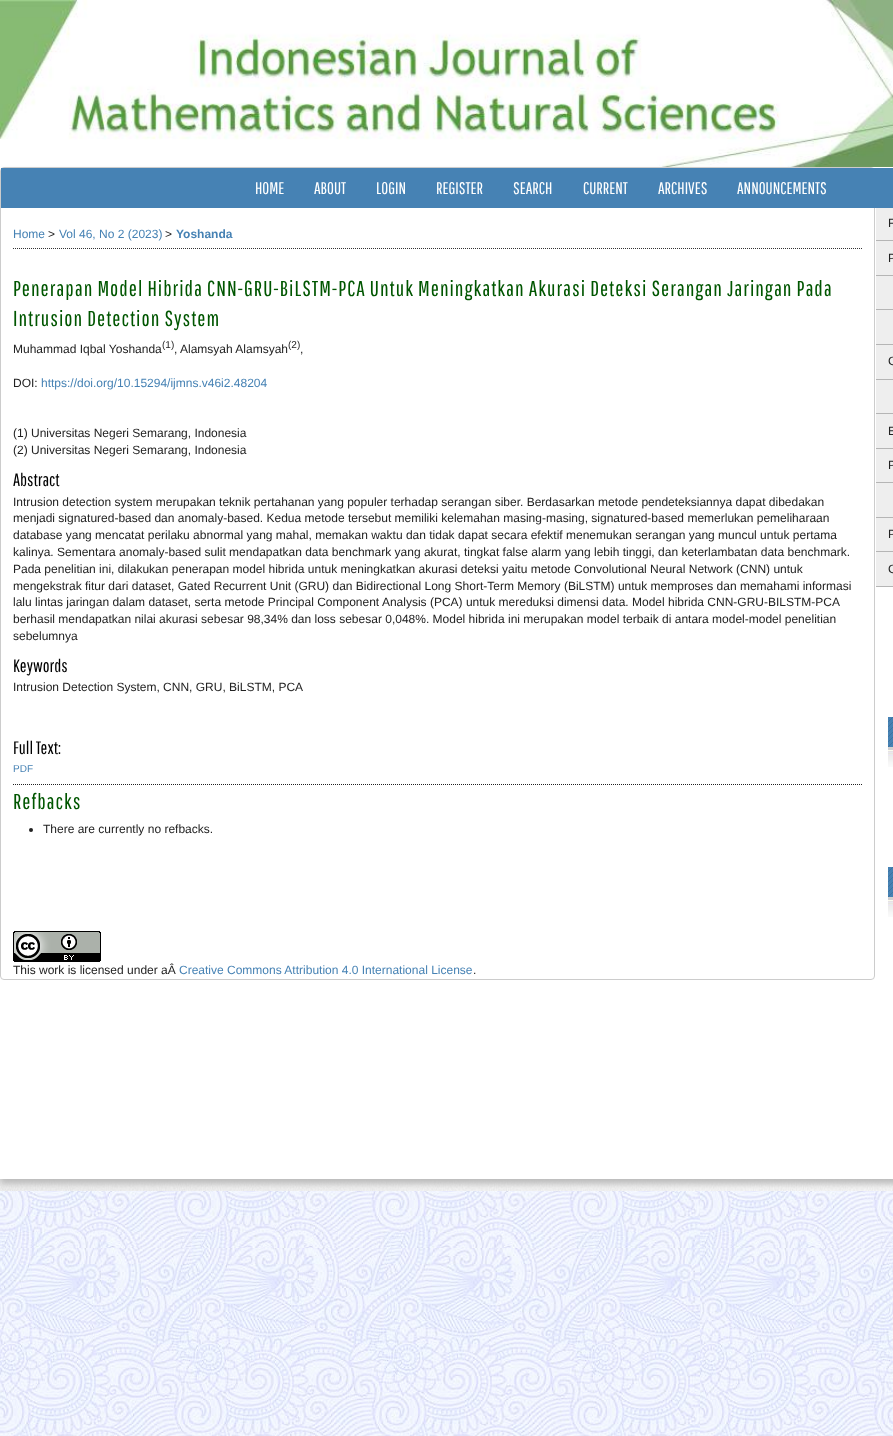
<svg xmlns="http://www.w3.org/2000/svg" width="893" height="1436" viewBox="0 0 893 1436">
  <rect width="100%" height="100%" fill="#fff"/>
  <image x="0" y="1191" width="893" height="245" href="img/1.png"/>
  <image x="0" y="1179" width="893" height="12" href="img/2.png"/>
  <image x="0" y="0" width="893" height="167" href="img/3.png"/>
  <path d="M0 172h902v1012H0z" fill="#bbb" filter="blur(3px)"/>
  <path d="M0 167h893v1012H0z" fill="#fff"/>
  <rect x="0.5" y="167.5" width="874" height="812" rx="3.5" fill="none" stroke="#ccc"/>
  <path d="M1 168h892v40H1z" fill="#4682b4"/>
  <path d="M13 248.5H862" fill="none" stroke="#333" stroke-dasharray="1 1"/>
  <path d="M13 784.5H862" fill="none" stroke="#222" stroke-dasharray="1 1"/>
  <circle cx="31" cy="830" r="2" fill="#222"/>
  <image x="13" y="931" width="88" height="31" href="img/4.png"/>
  <path d="M876 208h17v32H876z" fill="#eee"/>
  <path d="M876 240h17v1H876z" fill="#b5b5b5"/>
  <path d="M876 241h17v34H876z" fill="#eee"/>
  <path d="M876 275h17v1H876z" fill="#b5b5b5"/>
  <path d="M876 276h17v33H876z" fill="#eee"/>
  <path d="M876 309h17v1H876z" fill="#b5b5b5"/>
  <path d="M876 310h17v34H876z" fill="#eee"/>
  <path d="M876 344h17v1H876z" fill="#b5b5b5"/>
  <path d="M876 345h17v34H876z" fill="#eee"/>
  <path d="M876 379h17v1H876z" fill="#b5b5b5"/>
  <path d="M876 380h17v33H876z" fill="#eee"/>
  <path d="M876 413h17v1H876z" fill="#b5b5b5"/>
  <path d="M876 414h17v34H876z" fill="#eee"/>
  <path d="M876 448h17v1H876z" fill="#b5b5b5"/>
  <path d="M876 449h17v33H876z" fill="#eee"/>
  <path d="M876 482h17v1H876z" fill="#b5b5b5"/>
  <path d="M876 483h17v34H876z" fill="#eee"/>
  <path d="M876 517h17v1H876z" fill="#b5b5b5"/>
  <path d="M876 518h17v33H876z" fill="#eee"/>
  <path d="M876 551h17v1H876z" fill="#b5b5b5"/>
  <path d="M876 552h17v34H876z" fill="#eee"/>
  <path d="M876 586h17v1H876z" fill="#b5b5b5"/>
  <image x="888" y="747" width="5" height="20" href="img/5.png"/>
  <path d="M888 717h5v30H888z" fill="#4682b4"/>
  <image x="888" y="717" width="5" height="30" href="img/6.png"/>
  <image x="888" y="897" width="5" height="20" href="img/5.png"/>
  <path d="M888 867h5v30H888z" fill="#4682b4"/>
  <image x="888" y="867" width="5" height="30" href="img/6.png"/>
  <g font-family="Pathway Gothic One" font-size="16.75" fill="#fff">
    <text x="255" y="194">HOME</text>
    <text x="314" y="194">ABOUT</text>
    <text x="376" y="194">LOGIN</text>
    <text x="436" y="194">REGISTER</text>
    <text x="513" y="194">SEARCH</text>
    <text x="583" y="194">CURRENT</text>
    <text x="658" y="194">ARCHIVES</text>
    <text x="737" y="194">ANNOUNCEMENTS</text>
  </g>
  <text x="13" y="238" font-family="Liberation Sans" font-size="12" fill="#4682b4">Home</text>
  <text x="48" y="238" font-family="Liberation Sans" font-size="12" fill="#222">&gt;</text>
  <text x="59" y="238" font-family="Liberation Sans" font-size="12" fill="#4682b4">Vol 46, No 2 (2023)</text>
  <text x="165" y="238" font-family="Liberation Sans" font-size="12" fill="#222">&gt;</text>
  <text x="176" y="238" font-family="Liberation Sans" font-size="12" font-weight="bold" fill="#4682b4">Yoshanda</text>
  <g font-family="Pathway Gothic One" font-size="21.6" letter-spacing="1" fill="#005600">
    <text x="13" y="296">Penerapan Model Hibrida CNN-GRU-BiLSTM-PCA Untuk Meningkatkan Akurasi Deteksi Serangan Jaringan Pada</text>
    <text x="13" y="326">Intrusion Detection System</text>
  </g>
  <text x="13" y="353" font-family="Liberation Sans" font-size="12" fill="#222">Muhammad Iqbal Yoshanda</text>
  <text x="162" y="348" font-family="Liberation Sans" font-size="10" fill="#222">(1)</text>
  <g font-family="Liberation Sans" font-size="12" fill="#222">
    <text x="174" y="353">,</text>
    <text x="180" y="353">Alamsyah Alamsyah</text>
  </g>
  <text x="288" y="348" font-family="Liberation Sans" font-size="10" fill="#222">(2)</text>
  <g font-family="Liberation Sans" font-size="12" fill="#222">
    <text x="300" y="353">,</text>
    <text x="13" y="387">DOI:</text>
  </g>
  <text x="41" y="387" font-family="Liberation Sans" font-size="12" fill="#4682b4">https://doi.org/10.15294/ijmns.v46i2.48204</text>
  <g font-family="Liberation Sans" font-size="12" fill="#222">
    <text x="13" y="437">(1) Universitas Negeri Semarang, Indonesia</text>
    <text x="13" y="454">(2) Universitas Negeri Semarang, Indonesia</text>
  </g>
  <text x="13" y="486" font-family="Pathway Gothic One" font-size="18" fill="#000">Abstract</text>
  <g font-family="Liberation Sans" font-size="12" fill="#222">
    <text x="13" y="506">Intrusion detection system merupakan teknik pertahanan yang populer terhadap serangan siber. Berdasarkan metode pendeteksiannya dapat dibedakan</text>
    <text x="13" y="522">menjadi signatured-based dan anomaly-based. Kedua metode tersebut memiliki kelemahan masing-masing, signatured-based memerlukan pemeliharaan</text>
    <text x="13" y="539">database yang mencatat perilaku abnormal yang mahal, memakan waktu dan tidak dapat secara efektif menemukan serangan yang muncul untuk pertama</text>
    <text x="13" y="556">kalinya. Sementara anomaly-based sulit mendapatkan data benchmark yang akurat, tingkat false alarm yang lebih tinggi, dan keterlambatan data benchmark.</text>
    <text x="13" y="573">Pada penelitian ini, dilakukan penerapan model hibrida untuk meningkatkan akurasi deteksi yaitu metode Convolutional Neural Network (CNN) untuk</text>
    <text x="13" y="590">mengekstrak fitur dari dataset, Gated Recurrent Unit (GRU) dan Bidirectional Long Short-Term Memory (BiLSTM) untuk memproses dan memahami informasi</text>
    <text x="13" y="606">lalu lintas jaringan dalam dataset, serta metode Principal Component Analysis (PCA) untuk mereduksi dimensi data. Model hibrida CNN-GRU-BILSTM-PCA</text>
    <text x="13" y="623">berhasil mendapatkan nilai akurasi sebesar 98,34% dan loss sebesar 0,048%. Model hibrida ini merupakan model terbaik di antara model-model penelitian</text>
    <text x="13" y="640">sebelumnya</text>
  </g>
  <text x="13" y="672" font-family="Pathway Gothic One" font-size="18" fill="#000">Keywords</text>
  <text x="13" y="691" font-family="Liberation Sans" font-size="12" fill="#222">Intrusion Detection System, CNN, GRU, BiLSTM, PCA</text>
  <text x="13" y="754" font-family="Pathway Gothic One" font-size="18" fill="#000">Full Text:</text>
  <text x="13" y="772" font-family="Liberation Sans" font-size="10" fill="#4682b4">PDF</text>
  <text x="13" y="809" font-family="Pathway Gothic One" font-size="21.6" letter-spacing="1" fill="#005600">Refbacks</text>
  <g font-family="Liberation Sans" font-size="12" fill="#222">
    <text x="43" y="833">There are currently no refbacks.</text>
    <text x="13" y="974">This work is licensed under aÂ</text>
  </g>
  <text x="179" y="974" font-family="Liberation Sans" font-size="12" fill="#4682b4">Creative Commons Attribution 4.0 International License</text>
  <g font-family="Liberation Sans" font-size="12" fill="#222">
    <text x="473" y="974">.</text>
    <text x="888" y="227">F</text>
    <text x="888" y="262">P</text>
    <text x="888" y="365">C</text>
    <text x="888" y="435">E</text>
    <text x="888" y="469">P</text>
    <text x="888" y="538">P</text>
    <text x="888" y="573">C</text>
  </g>
</svg>
